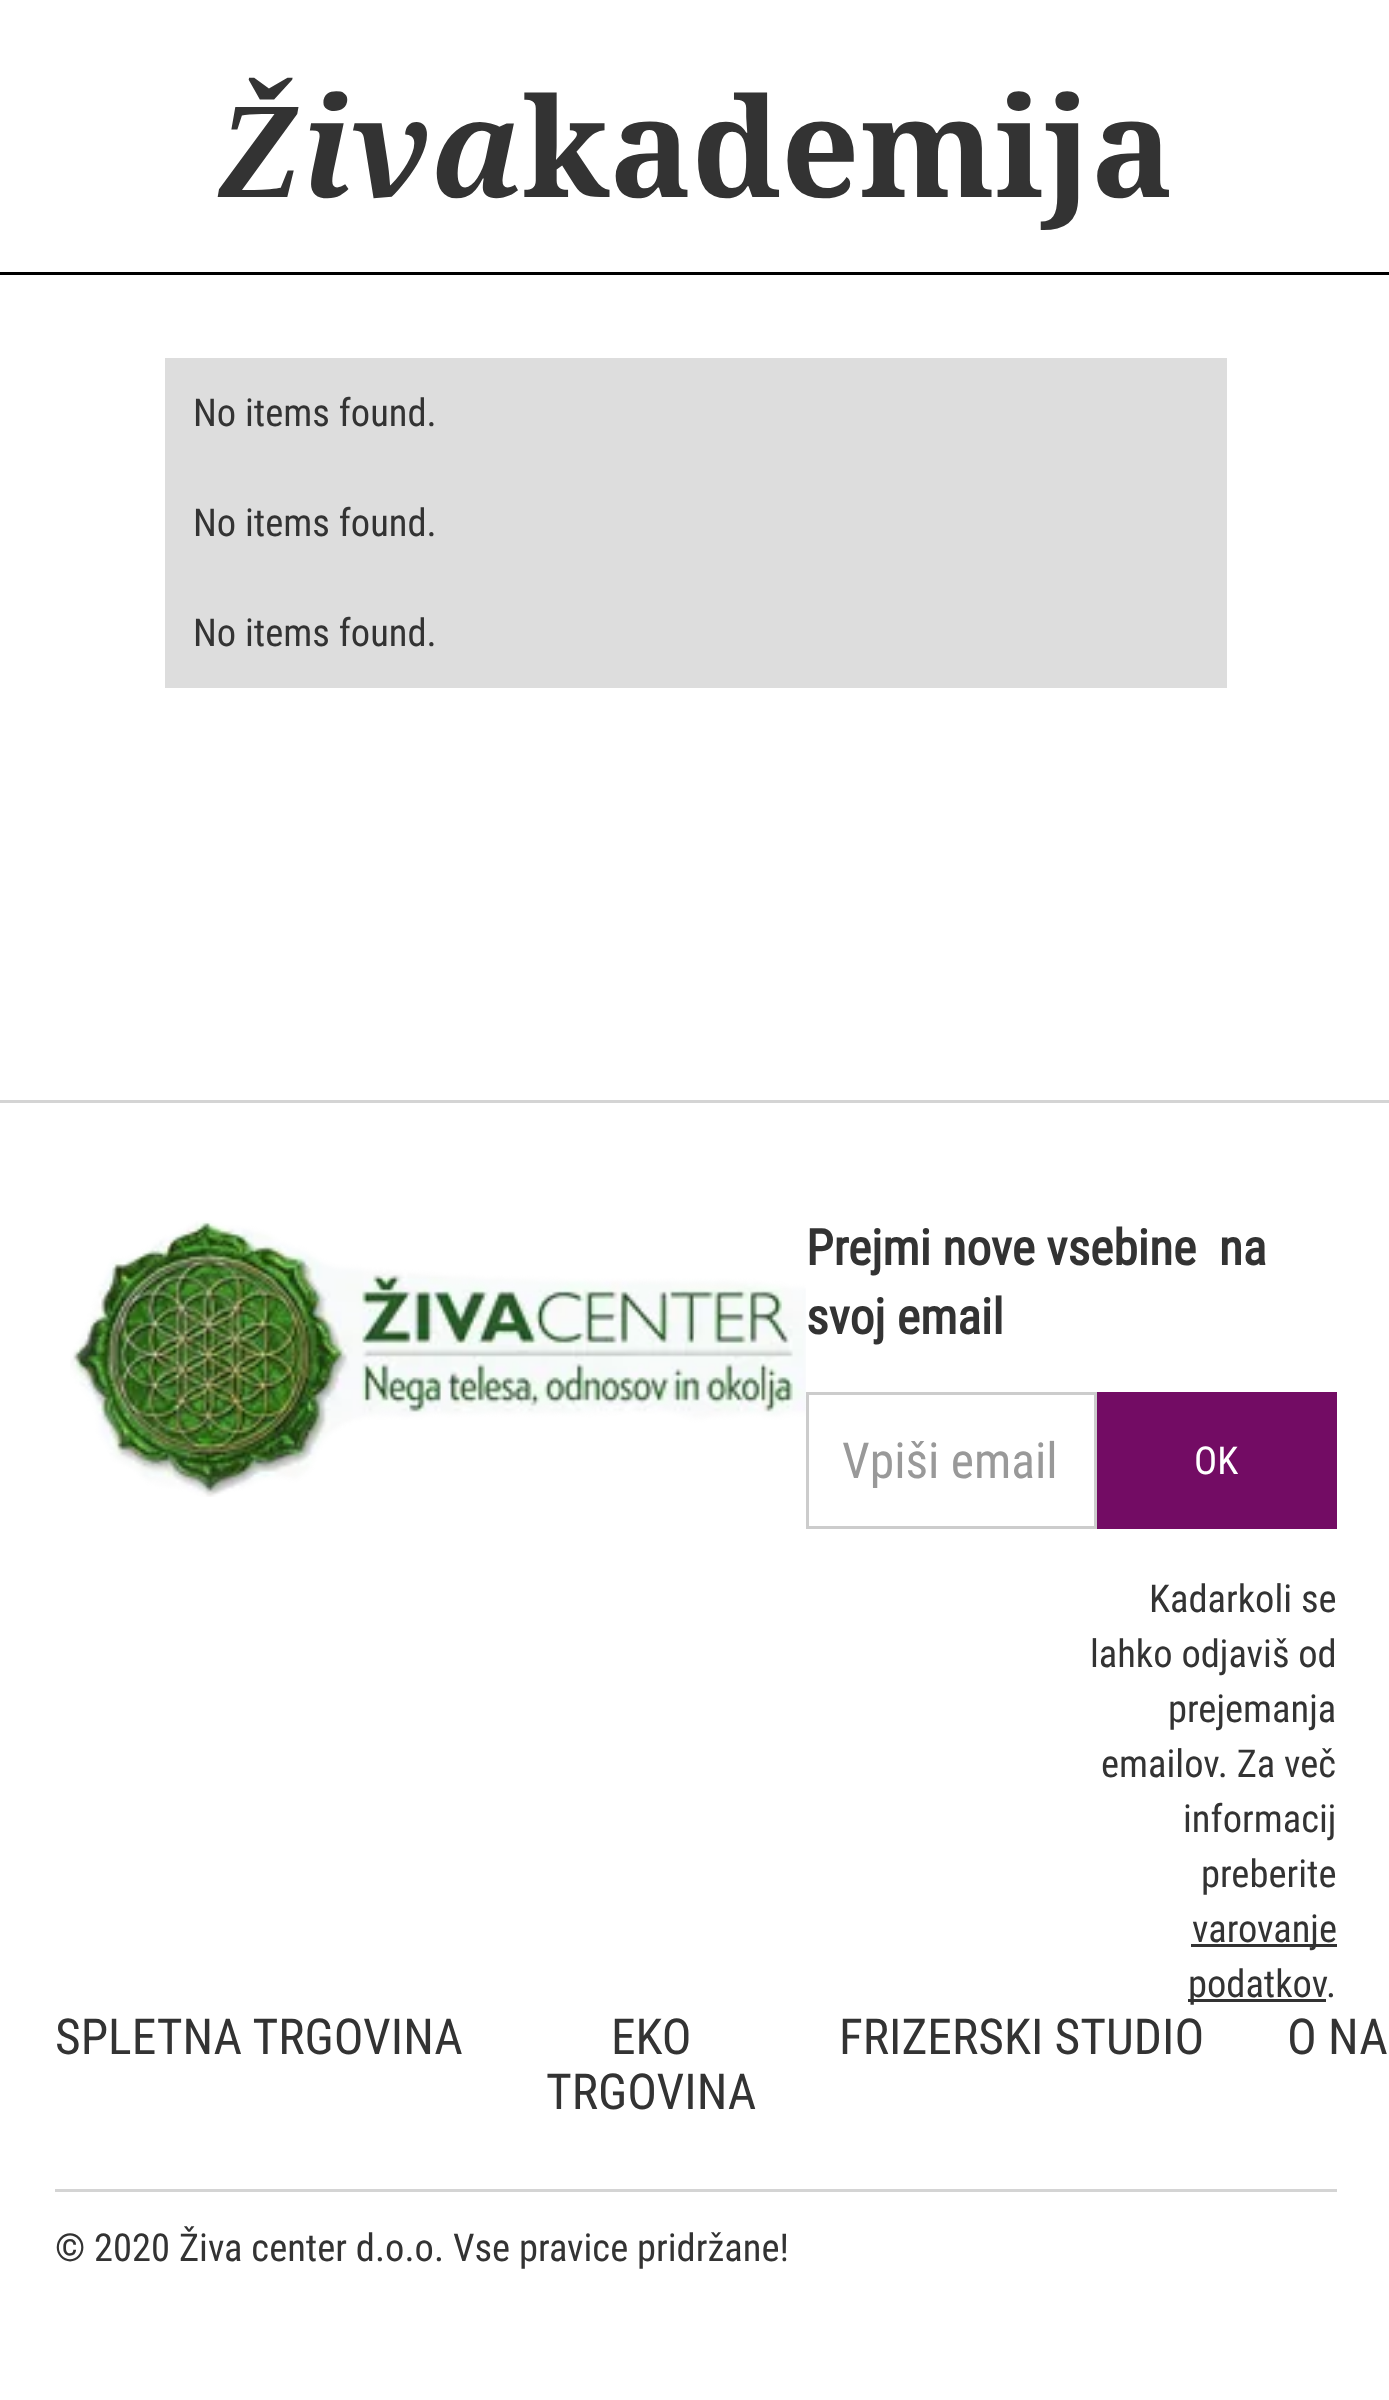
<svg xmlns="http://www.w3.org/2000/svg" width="1389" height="2400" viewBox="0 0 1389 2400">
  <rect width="100%" height="100%" fill="#fff"/>
  <path d="M0 272h1389v3H0z" fill="#000"/>
  <path d="M165 358h1062v330H165z" fill="#ddd"/>
  <path d="M0 1100h1389v3H0z" fill="#d4d4d4"/>
  <image x="70" y="1220" width="736" height="277" href="img/1.png"/>
  <path d="M807.5 1393.5h288v134H807.5z" fill="none" stroke="#ccc" stroke-width="3"/>
  <path d="M1097 1392h240v137H1097z" fill="#730c64"/>
  <path d="M1191 1944h146v3H1191z" fill="#333"/>
  <path d="M1188 1999h138v3H1188z" fill="#333"/>
  <path d="M55 2189h1282v3H55z" fill="#d4d4d4"/>
  <text x="218" y="197" font-family="Liberation Serif" font-size="137.5" font-weight="bold" font-style="italic" fill="#333">Ž</text>
  <text x="302" y="197" font-family="Droid Serif" font-size="137.5" font-weight="bold" font-style="italic" fill="#333">iva</text>
  <text x="522" y="197" font-family="Droid Serif" font-size="137.5" font-weight="bold" fill="#333">kademija</text>
  <g font-family="Roboto Condensed" font-size="38.5" fill="#333">
    <text x="193" y="426">No items found.</text>
    <text x="193" y="536">No items found.</text>
    <text x="193" y="646">No items found.</text>
  </g>
  <g font-family="Roboto Condensed" font-size="49.5" font-weight="bold" fill="#333">
    <text x="806" y="1265" xml:space="preserve">Prejmi nove vsebine  na</text>
    <text x="806" y="1334">svoj email</text>
  </g>
  <text x="842" y="1478" font-family="Roboto Condensed" font-size="49.5" fill="#999">Vpiši email</text>
  <text x="1194" y="1474" font-family="Roboto Condensed" font-size="38.5" fill="#fff">OK</text>
  <g font-family="Roboto Condensed" font-size="38.5" fill="#333">
    <text x="1149" y="1612">Kadarkoli se</text>
    <text x="1090" y="1667">lahko odjaviš od</text>
    <text x="1168" y="1722">prejemanja</text>
    <text x="1101" y="1777">emailov. Za več</text>
    <text x="1183" y="1832">informacij</text>
    <text x="1201" y="1887">preberite</text>
    <text x="1192" y="1942">varovanje</text>
    <text x="1188" y="1997">podatkov</text>
    <text x="1326" y="1997">.</text>
  </g>
  <g font-family="Roboto Condensed" font-size="49.5" fill="#333">
    <text x="55" y="2054">SPLETNA TRGOVINA</text>
    <text x="611" y="2054">EKO</text>
    <text x="546" y="2109">TRGOVINA</text>
    <text x="839" y="2054">FRIZERSKI STUDIO</text>
    <text x="1287" y="2054">O NA</text>
  </g>
  <text x="55" y="2261" font-family="Roboto Condensed" font-size="38.5" fill="#333">© 2020 Živa center d.o.o. Vse pravice pridržane!</text>
</svg>
